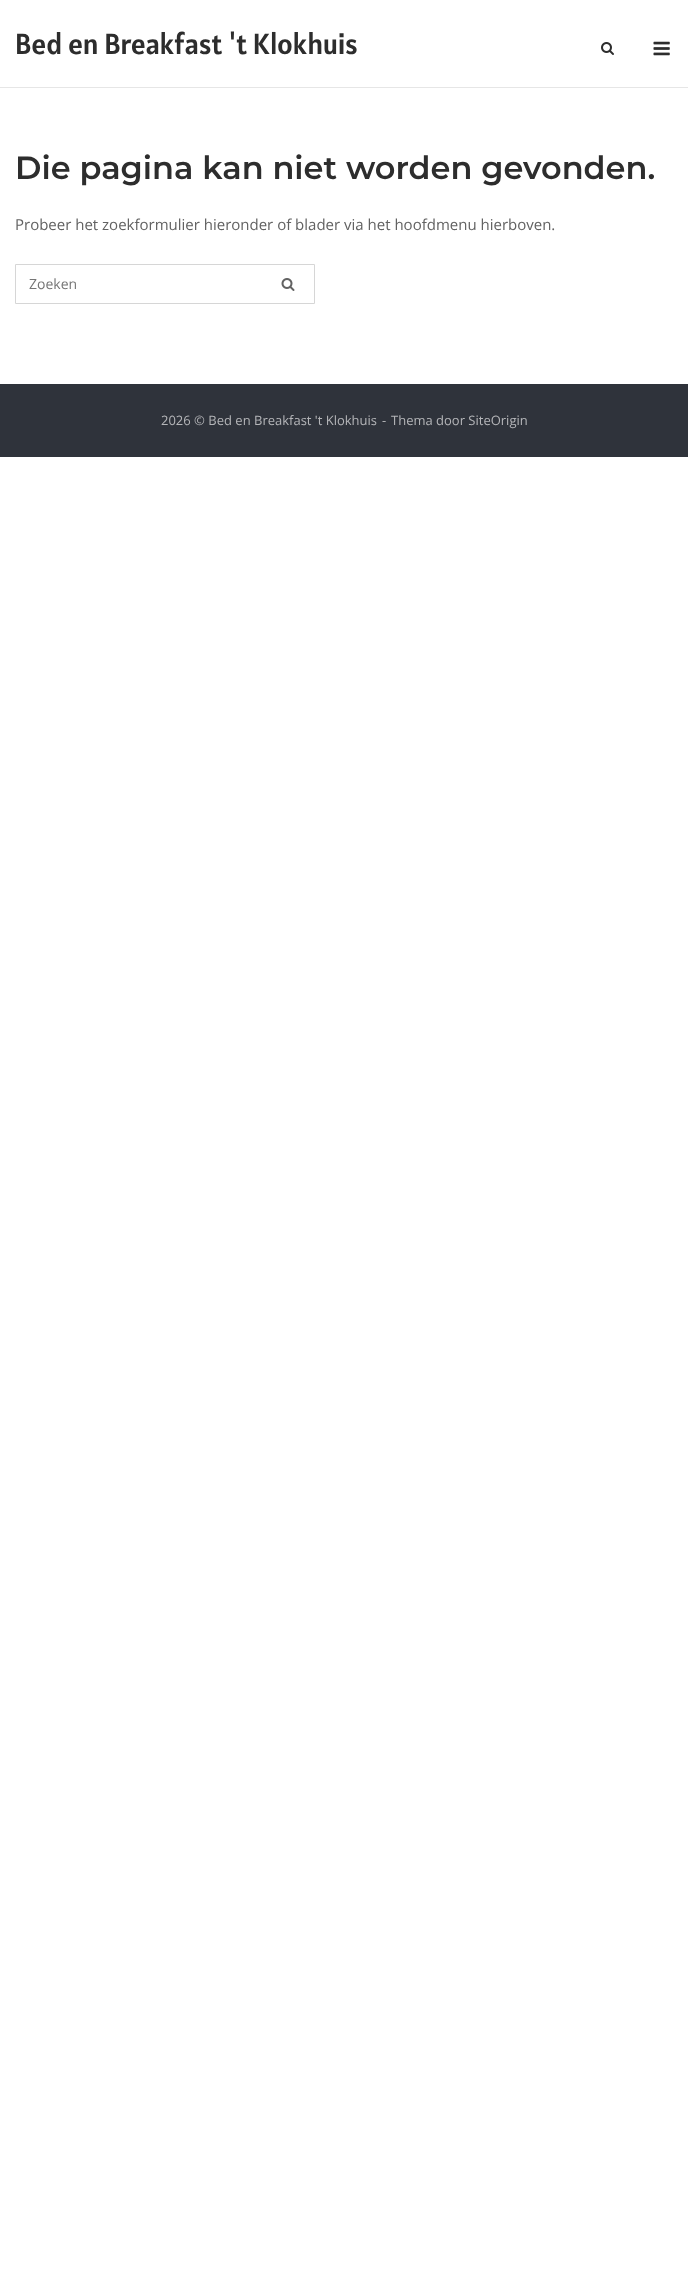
<svg xmlns="http://www.w3.org/2000/svg" width="688" height="2279" viewBox="0 0 688 2279">
  <rect width="100%" height="100%" fill="#fff"/>
  <path d="M0 87h688v1H0z" fill="#e6e6e6"/>
  <image x="601" y="42" width="13" height="13" href="img/1.png"/>
  <image x="653" y="41" width="17" height="15" href="img/2.png"/>
  <path d="M15.5 264.5h299v39H15.5z" fill="none" stroke="#d6d6d6"/>
  <image x="281" y="278" width="14" height="13" href="img/3.png"/>
  <path d="M0 384h688v73H0z" fill="#2f333b"/>
  <text x="15" y="54" font-family="Alatsi" font-size="29" fill="#2d2d2d">Bed en Breakfast 't Klokhuis</text>
  <text x="15" y="179" font-family="Montserrat" font-size="32" font-weight="600" fill="#2d2d2d">Die pagina kan niet worden gevonden.</text>
  <text x="15" y="230" font-family="Open Sans" font-size="15" fill="#626262">Probeer het zoekformulier hieronder of blader via het hoofdmenu hierboven.</text>
  <text x="29" y="289" font-family="Open Sans" font-size="14" fill="#757575">Zoeken</text>
  <g font-family="Open Sans" font-size="13" fill="#b4b5b8">
    <text x="161" y="425">2026 © Bed en Breakfast 't Klokhuis</text>
    <text x="382" y="425">-</text>
    <text x="391" y="425">Thema door SiteOrigin</text>
  </g>
</svg>
